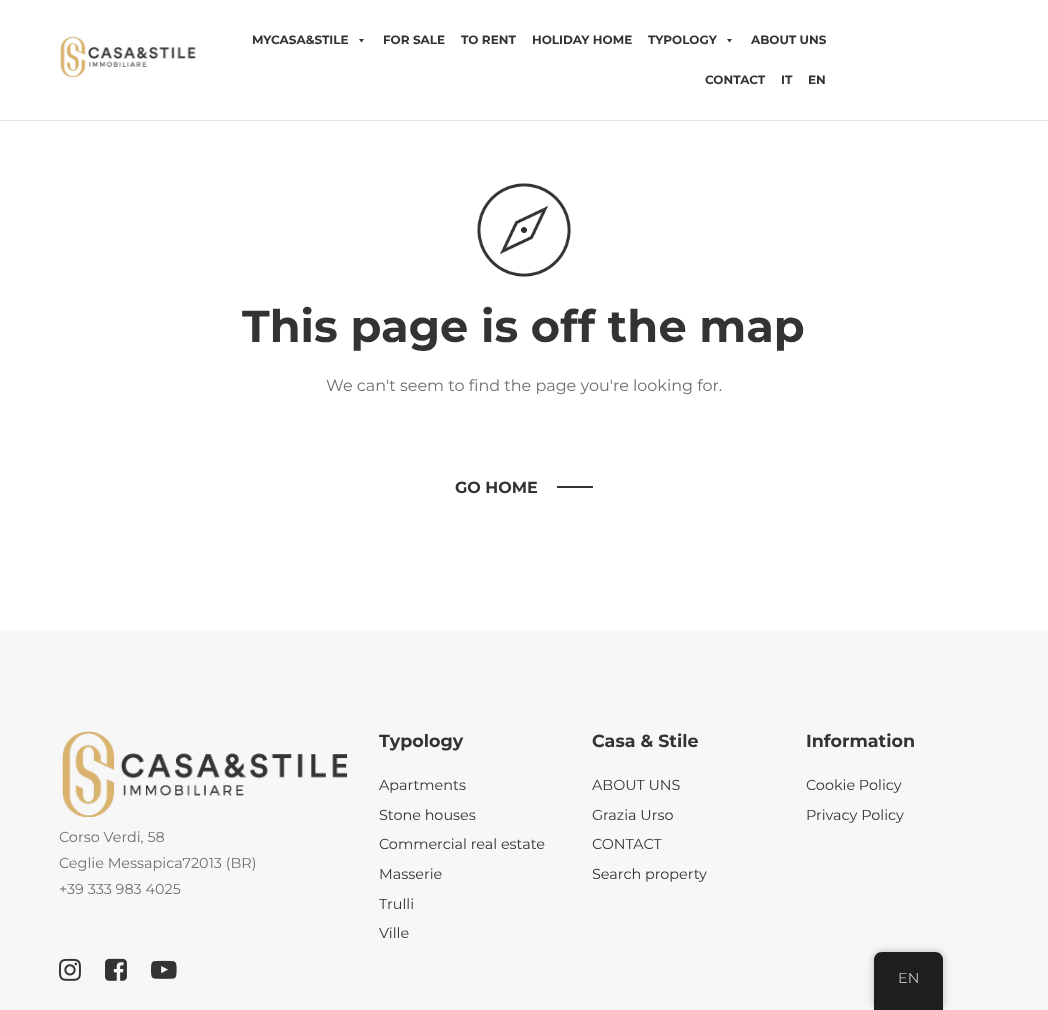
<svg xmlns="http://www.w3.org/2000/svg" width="1048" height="1010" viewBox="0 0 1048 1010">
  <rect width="100%" height="100%" fill="#fff"/>
  <path d="M0 120h1048v1H0z" fill="#e2e2e2"/>
  <image x="60" y="36" width="136" height="41" href="img/1.png"/>
  <path d="M364 39L361.5 42.5L359 39Z" fill="#333"/>
  <path d="M732 39L729.5 42.5L727 39Z" fill="#333"/>
  <image x="477" y="183" width="94" height="94" href="img/2.png"/>
  <path d="M557 486h36v2H557z" fill="#333"/>
  <path d="M0 630h1048v380H0z" fill="#f7f7f7"/>
  <image x="62" y="731" width="286" height="86" href="img/3.png"/>
  <image x="59" y="958" width="22" height="23" href="img/4.png"/>
  <image x="105" y="958" width="22" height="23" href="img/5.png"/>
  <image x="151" y="960" width="26" height="19" href="img/6.png"/>
  <rect x="874" y="952" width="69" height="58" rx="8" fill="#00000040" filter="blur(4px)"/>
  <path d="M882 952H935C939.5 952 943 955.5 943 960V1010H874V960C874 955.5 877.5 952 882 952Z" fill="#1e1e1e"/>
  <g font-family="Montserrat" font-size="12" font-weight="bold" fill="#333">
    <text x="252" y="44">MYCASA&amp;STILE</text>
    <text x="383" y="44">FOR SALE</text>
    <text x="461" y="44">TO RENT</text>
    <text x="532" y="44">HOLIDAY HOME</text>
    <text x="648" y="44">TYPOLOGY</text>
    <text x="751" y="44">ABOUT UNS</text>
    <text x="705" y="84">CONTACT</text>
    <text x="781" y="84">IT</text>
    <text x="808" y="84">EN</text>
  </g>
  <text x="242" y="342" font-family="Montserrat" font-size="44.75" font-weight="bold" fill="#333">This page is off the map</text>
  <text x="326" y="391" font-family="Montserrat" font-size="16" fill="#707070">We can't seem to find the page you're looking for.</text>
  <text x="455" y="493" font-family="Montserrat" font-size="16" font-weight="bold" fill="#333">GO HOME</text>
  <g font-family="Montserrat" font-size="14.4" fill="#707070">
    <text x="59" y="842">Corso Verdi, 58</text>
    <text x="59" y="868">Ceglie Messapica72013 (BR)</text>
    <text x="59" y="894">+39 333 983 4025</text>
  </g>
  <text x="379" y="747" font-family="Montserrat" font-size="17.5" font-weight="bold" fill="#333">Typology</text>
  <g font-family="Montserrat" font-size="14.4" fill="#333">
    <text x="379" y="790">Apartments</text>
    <text x="379" y="820">Stone houses</text>
    <text x="379" y="849">Commercial real estate</text>
    <text x="379" y="879">Masserie</text>
    <text x="379" y="909">Trulli</text>
    <text x="379" y="938">Ville</text>
  </g>
  <text x="592" y="747" font-family="Montserrat" font-size="17.5" font-weight="bold" fill="#333">Casa &amp; Stile</text>
  <g font-family="Montserrat" font-size="14.4" fill="#333">
    <text x="592" y="790">ABOUT UNS</text>
    <text x="592" y="820">Grazia Urso</text>
    <text x="592" y="849">CONTACT</text>
    <text x="592" y="879">Search property</text>
  </g>
  <text x="806" y="747" font-family="Montserrat" font-size="17.5" font-weight="bold" fill="#333">Information</text>
  <g font-family="Montserrat" font-size="14.4" fill="#333">
    <text x="806" y="790">Cookie Policy</text>
    <text x="806" y="820">Privacy Policy</text>
  </g>
  <text x="898" y="983" font-family="Montserrat" font-size="14.4" fill="#bdbdbd">EN</text>
</svg>
